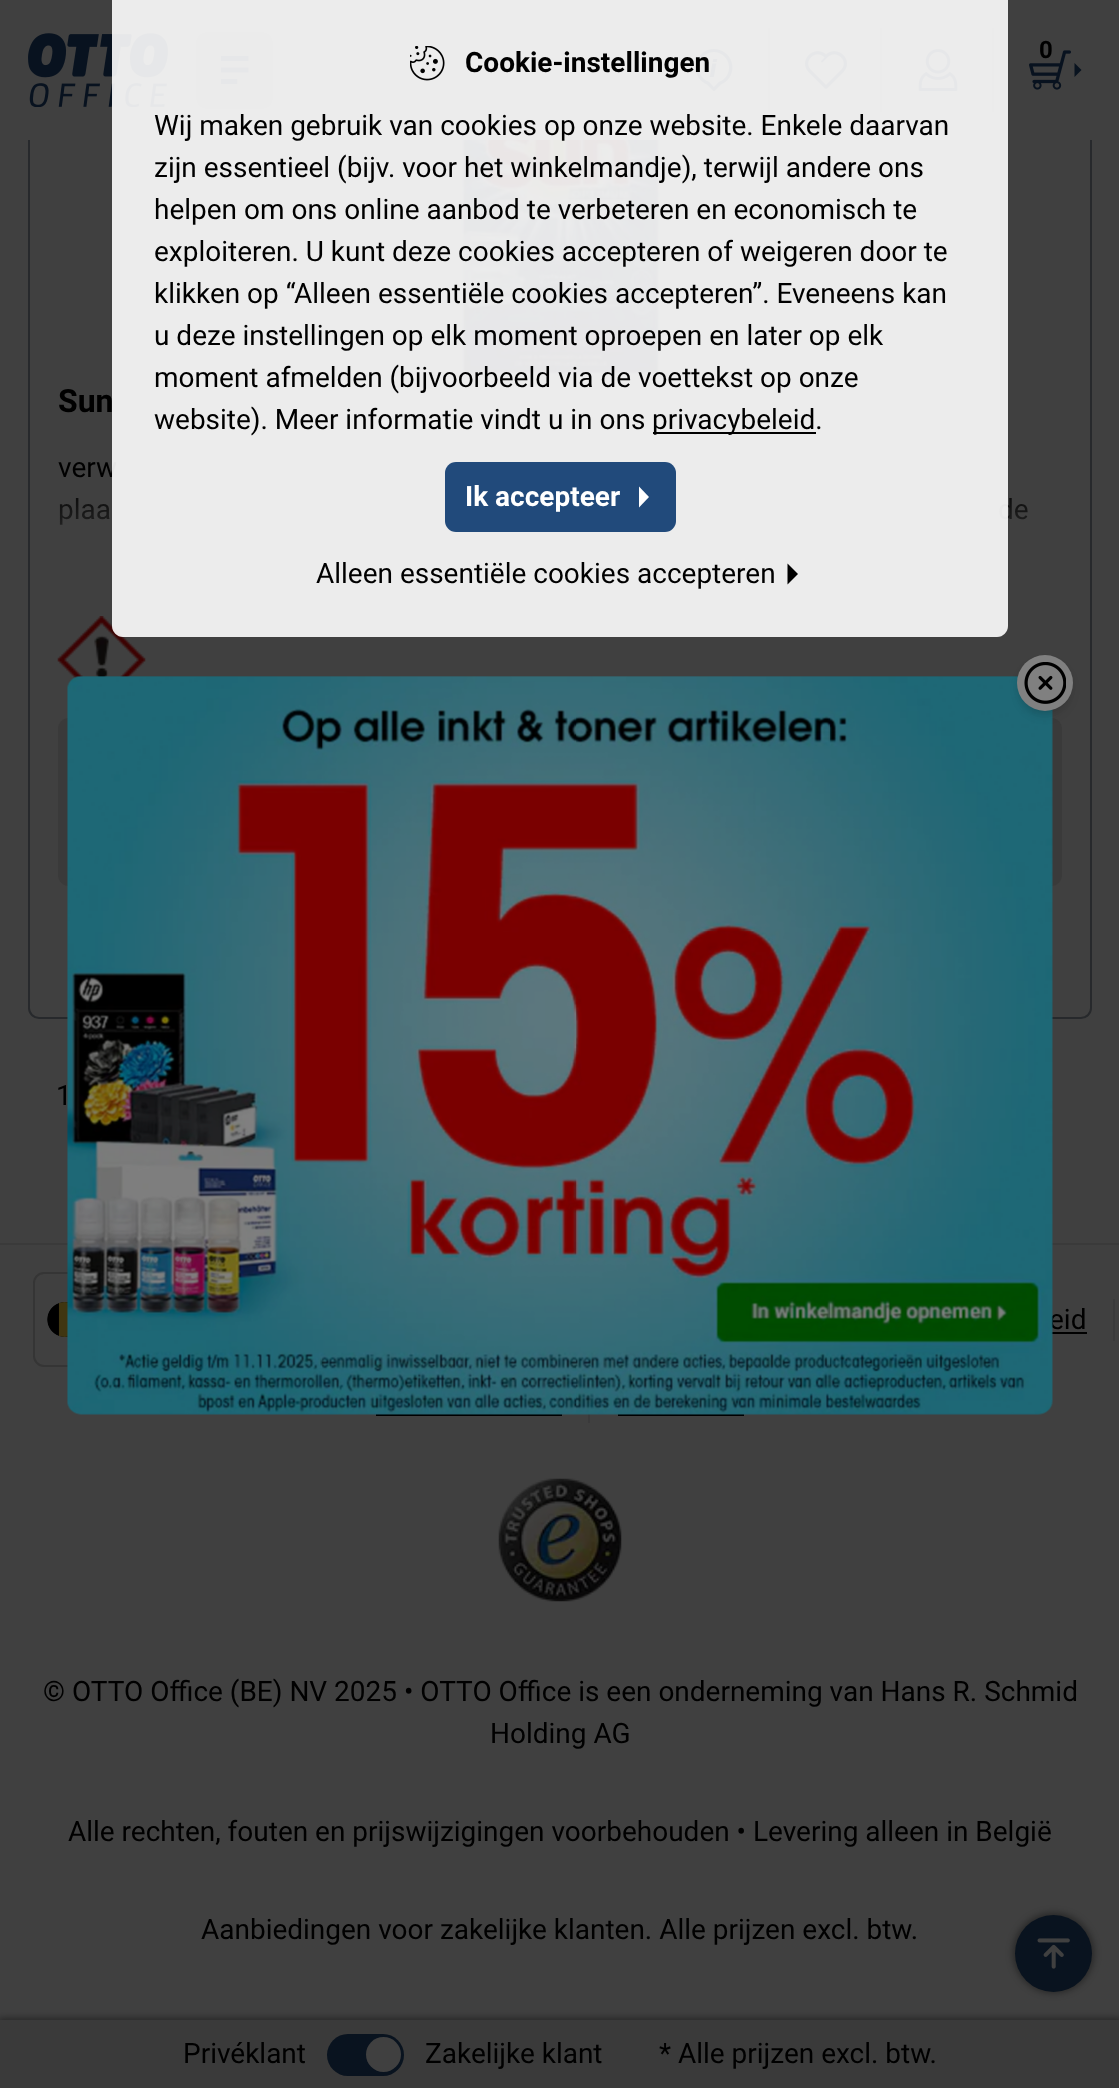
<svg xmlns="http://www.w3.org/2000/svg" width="1119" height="2088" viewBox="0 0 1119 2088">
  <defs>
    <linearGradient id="g1" gradientUnits="userSpaceOnUse" x1="560" y1="476" x2="560" y2="574"><stop offset="0" stop-color="#404040" stop-opacity="0"/><stop offset="1" stop-color="#404040"/></linearGradient>
  </defs>
  <rect width="100%" height="100%" fill="#404040"/>
  <rect x="29" y="-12" width="1062" height="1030" rx="10" fill="none" stroke="#27292c" stroke-width="2"/>
  <path d="M28 0h1064v140H28z" fill="#404040"/>
  <image x="28" y="33" width="140" height="74" href="img/1.png"/>
  <rect x="196" y="32" width="77" height="77" rx="11" fill="#3a3a3a"/>
  <image x="221" y="56" width="28" height="28" href="img/2.png"/>
  <image x="695" y="49" width="38" height="42" href="img/3.png"/>
  <path d="M768 28h2v84H768z" fill="#3a3a3b"/>
  <image x="805" y="51" width="42" height="38" href="img/4.png"/>
  <path d="M880 28h2v84H880z" fill="#3a3a3b"/>
  <image x="918" y="49" width="40" height="42" href="img/5.png"/>
  <path d="M992 28h2v84H992z" fill="#3a3a3b"/>
  <image x="1029" y="50" width="42" height="40" href="img/6.png"/>
  <path d="M1074.5 77V63L1081.5 70Z" fill="#09131f"/>
  <image x="447" y="140" width="219" height="236" href="img/7.png"/>
  <image x="57" y="616" width="89" height="83" href="img/8.png"/>
  <rect x="58" y="718" width="1004" height="168" rx="11" fill="#3a3a3a"/>
  <path d="M0 1243h1119v2H0z" fill="#3a3a3a"/>
  <rect x="34" y="1273" width="347" height="93" rx="10" fill="none" stroke="#353535" stroke-width="2"/>
  <image x="47" y="1302" width="32" height="35" href="img/9.png"/>
  <path d="M1051 1332h36v2H1051z" fill="#000"/>
  <path d="M1113 1299h2v42H1113z" fill="#3a3a3b"/>
  <path d="M376 1414h186v2H376z" fill="#000"/>
  <path d="M588 1413h2v10H588z" fill="#3a3a3b"/>
  <path d="M618 1414h126v2H618z" fill="#000"/>
  <image x="498" y="1478" width="124" height="124" href="img/10.png"/>
  <path d="M-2 2018h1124v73H-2z" fill="#00000066" filter="blur(3.5px)"/>
  <path d="M0 2020h1119v68H0z" fill="#3a3a3a"/>
  <rect x="1013" y="1913" width="81" height="80" rx="40" fill="#00000066" filter="blur(3.5px)"/>
  <circle cx="1053.5" cy="1953.5" r="38.5" fill="#09131f"/>
  <image x="1037" y="1938" width="33" height="31" href="img/14.png"/>
  <rect x="327" y="2034" width="77" height="42" rx="21" fill="#09131f"/>
  <circle cx="383.5" cy="2054.5" r="17.5" fill="#404040"/>
  <text x="1039" y="58" font-family="Roboto" font-size="24" font-weight="bold" fill="#000">0</text>
  <text x="58" y="412" font-family="Roboto" font-size="32" font-weight="bold" fill="#000">Sun</text>
  <g font-family="Roboto" font-size="28" fill="#000">
    <text x="58" y="477">verw</text>
    <text x="58" y="519">plaa</text>
    <text x="998" y="519">de</text>
  </g>
  <path d="M59 498h969v27H59z" fill="url(#g1)"/>
  <g font-family="Roboto" font-size="28" fill="#000">
    <text x="56" y="1105">1</text>
    <text x="1049" y="1329">eid</text>
    <text x="43" y="1701">© OTTO Office (BE) NV 2025 • OTTO Office is een onderneming van Hans R. Schmid</text>
    <text x="490" y="1743">Holding AG</text>
    <text x="68" y="1841">Alle rechten, fouten en prijswijzigingen voorbehouden • Levering alleen in België</text>
    <text x="201" y="1939">Aanbiedingen voor zakelijke klanten. Alle prijzen excl. btw.</text>
  </g>
  <path d="M112 0H1008V626C1008 632 1003 637 997 637H123C117 637 112 632 112 626Z" fill="#ffffffe6"/>
  <image x="410" y="46" width="35" height="35" href="img/11.png"/>
  <text x="465" y="72" font-family="Roboto" font-size="28" font-weight="bold" fill="#000">Cookie-instellingen</text>
  <g font-family="Roboto" font-size="28" fill="#000">
    <text x="154" y="135">Wij maken gebruik van cookies op onze website. Enkele daarvan</text>
    <text x="154" y="177">zijn essentieel (bijv. voor het winkelmandje), terwijl andere ons</text>
    <text x="154" y="219">helpen om ons online aanbod te verbeteren en economisch te</text>
    <text x="154" y="261">exploiteren. U kunt deze cookies accepteren of weigeren door te</text>
    <text x="154" y="303">klikken op “Alleen essentiële cookies accepteren”. Eveneens kan</text>
    <text x="154" y="345">u deze instellingen op elk moment oproepen en later op elk</text>
    <text x="154" y="387">moment afmelden (bijvoorbeeld via de voettekst op onze</text>
    <text x="154" y="429">website). Meer informatie vindt u in ons</text>
  </g>
  <path d="M653 432h163v2H653z" fill="#000"/>
  <text x="652" y="429" font-family="Roboto" font-size="28" fill="#000">privacybeleid.</text>
  <rect x="445" y="462" width="231" height="70" rx="11" fill="#214a7b"/>
  <text x="465" y="506" font-family="Roboto" font-size="28" font-weight="bold" fill="#fff">Ik accepteer</text>
  <path d="M639 507.5V486.5L649 497Z" fill="#fff"/>
  <text x="316" y="583" font-family="Roboto" font-size="28" fill="#000">Alleen essentiële cookies accepteren</text>
  <path d="M787.5 584.5V563.5L798 574Z" fill="#000"/>
  <image x="67" y="676" width="986" height="739" href="img/13.png"/>
  <rect x="1019" y="663" width="52" height="53" rx="26" fill="#0000001a" filter="blur(5px)"/>
  <rect x="1020" y="662" width="49" height="49" rx="24.5" fill="#0000001a" filter="blur(3.5px)"/>
  <circle cx="1045" cy="683" r="28" fill="#808080"/>
  <image x="1024" y="662" width="42" height="42" href="img/12.png"/>
  <g font-family="Roboto" font-size="28" fill="#000">
    <text x="183" y="2063">Privéklant</text>
    <text x="425" y="2063">Zakelijke klant</text>
    <text x="659" y="2063">* Alle prijzen excl. btw.</text>
  </g>
</svg>
